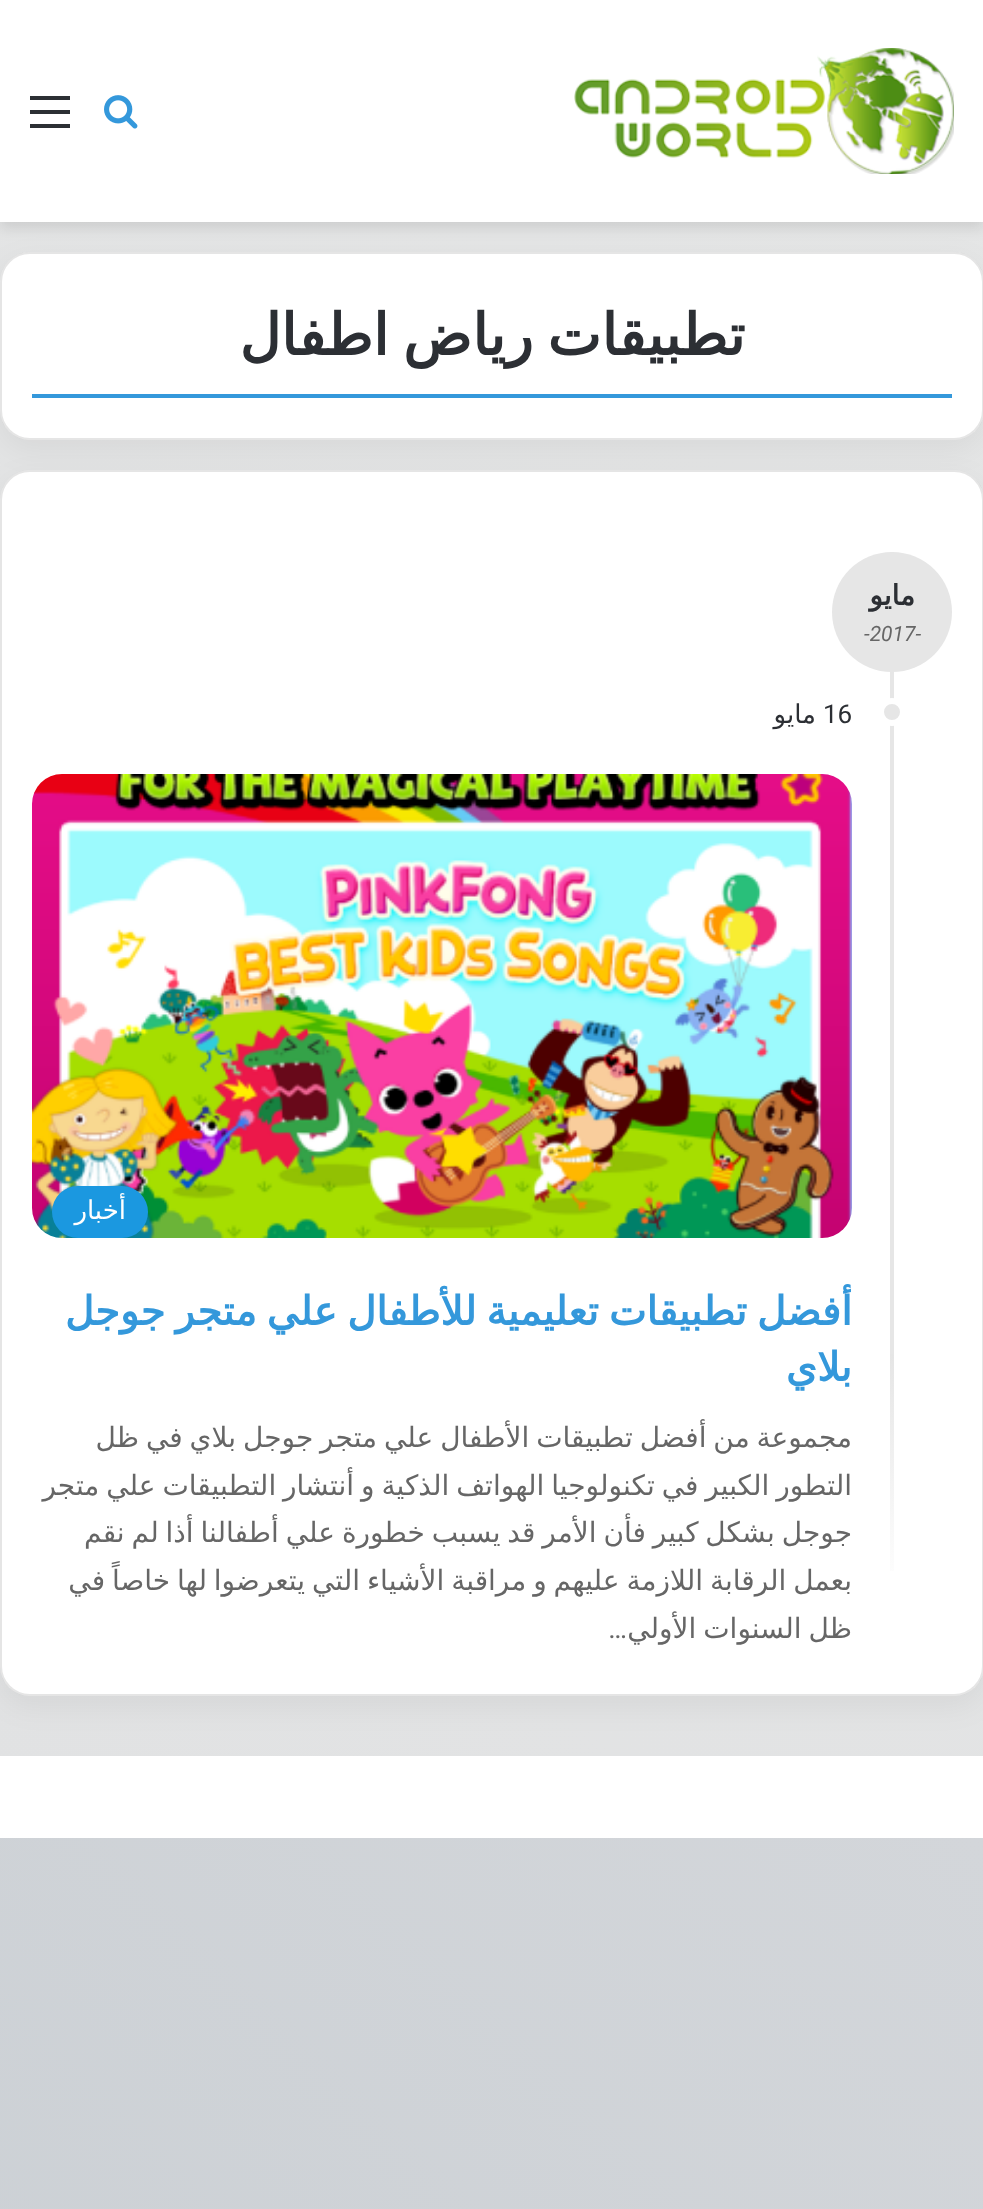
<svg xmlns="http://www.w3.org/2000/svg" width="983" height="2209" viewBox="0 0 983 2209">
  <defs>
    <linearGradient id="g1" gradientUnits="userSpaceOnUse" x1="-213" y1="1625" x2="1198" y2="214"><stop offset="0" stop-color="#e1e2e3"/><stop offset="1" stop-color="#e5e6e6"/></linearGradient>
    <linearGradient id="g2" gradientUnits="userSpaceOnUse" x1="-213" y1="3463" x2="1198" y2="2052"><stop offset="0" stop-color="#c6ccd1"/><stop offset="1" stop-color="#d3d6da"/></linearGradient>
    <linearGradient id="g3" gradientUnits="userSpaceOnUse" x1="892" y1="1354" x2="892" y2="1654"><stop offset="0" stop-color="#e5e5e5"/><stop offset="0.8" stop-color="#fff"/></linearGradient>
  </defs>
  <rect width="100%" height="100%" fill="#fff"/>
  <path d="M0 222h983v1534H0z" fill="url(#g1)"/>
  <path d="M0 1838h983v371H0z" fill="url(#g2)"/>
  <path d="M0 6h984v222H0z" fill="#0000001a" filter="blur(7px)"/>
  <rect y="262" width="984" height="188" rx="30" fill="#0000000d" filter="blur(15px)"/>
  <path d="M0 0h983v222H0z" fill="#fff"/>
  <image x="574" y="48" width="380" height="126" href="img/1.png"/>
  <image x="104" y="95" width="34" height="34" href="img/2.png"/>
  <path d="M30 110h40v4H30z" fill="#2c2f34"/>
  <path d="M30 96h40v4H30z" fill="#2c2f34"/>
  <path d="M30 124h40v4H30z" fill="#2c2f34"/>
  <rect y="252" width="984" height="188" rx="30" fill="#fff"/>
  <rect x="1" y="253" width="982" height="186" rx="29" fill="none" stroke="#0000001a" stroke-width="2"/>
  <path d="M32 394h920v4H32z" fill="#3498db"/>
  <rect y="480" width="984" height="1226" rx="30" fill="#0000000d" filter="blur(15px)"/>
  <rect y="470" width="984" height="1226" rx="30" fill="#fff"/>
  <rect x="1" y="471" width="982" height="1224" rx="29" fill="none" stroke="#0000001a" stroke-width="2"/>
  <path d="M890 552h4v802H890z" fill="#e6e6e6"/>
  <circle cx="892" cy="612" r="60" fill="#e6e6e6"/>
  <circle cx="892" cy="712" r="11" fill="#e6e6e6" stroke="#fff" stroke-width="6"/>
  <image x="32" y="774" width="820" height="464" href="img/3.png"/>
  <rect x="52" y="1186" width="96" height="52" rx="26" fill="#1b98e0"/>
  <path d="M890 1354h4v217H890z" fill="url(#g3)"/>
  <text x="745" y="355" word-spacing="-4" font-family="DejaVu Sans" font-size="57.25" font-weight="bold" direction="rtl" fill="#2c2f34">تطبيقات رياض اطفال</text>
  <text x="915" y="605" font-family="DejaVu Sans" font-size="28" font-weight="bold" direction="rtl" fill="#2c2f34">مايو</text>
  <text x="864" y="641" font-family="Roboto" font-size="21" font-style="italic" fill="#666">-2017-</text>
  <text x="823" y="723" font-family="Roboto" font-size="26" fill="#2c2f34">16</text>
  <text x="816" y="723" font-family="DejaVu Sans" font-size="26" direction="rtl" fill="#2c2f34">مايو</text>
  <text x="126" y="1219" font-family="DejaVu Sans" font-size="26" direction="rtl" fill="#fff">أخبار</text>
  <g font-family="DejaVu Sans" font-size="40" font-weight="bold" direction="rtl" fill="#3498db">
    <text x="852" y="1325" word-spacing="-2.75">أفضل تطبيقات تعليمية للأطفال علي متجر جوجل</text>
    <text x="852" y="1381">بلاي</text>
  </g>
  <g font-family="DejaVu Sans" font-size="28" direction="rtl" fill="#666">
    <text x="852" y="1447" word-spacing="-2">مجموعة من أفضل تطبيقات الأطفال علي متجر جوجل بلاي في ظل</text>
    <text x="852" y="1495" word-spacing="-2">التطور الكبير في تكنولوجيا الهواتف الذكية و أنتشار التطبيقات علي متجر</text>
    <text x="852" y="1542" word-spacing="-2">جوجل بشكل كبير فأن الأمر قد يسبب خطورة علي أطفالنا أذا لم نقم</text>
    <text x="852" y="1590" word-spacing="-2">بعمل الرقابة اللازمة عليهم و مراقبة الأشياء التي يتعرضوا لها خاصاً في</text>
    <text x="852" y="1638" word-spacing="-2">ظل السنوات الأولي</text>
  </g>
  <text x="627" y="1638" font-family="Roboto" font-size="28" direction="rtl" fill="#666">…</text>
</svg>
